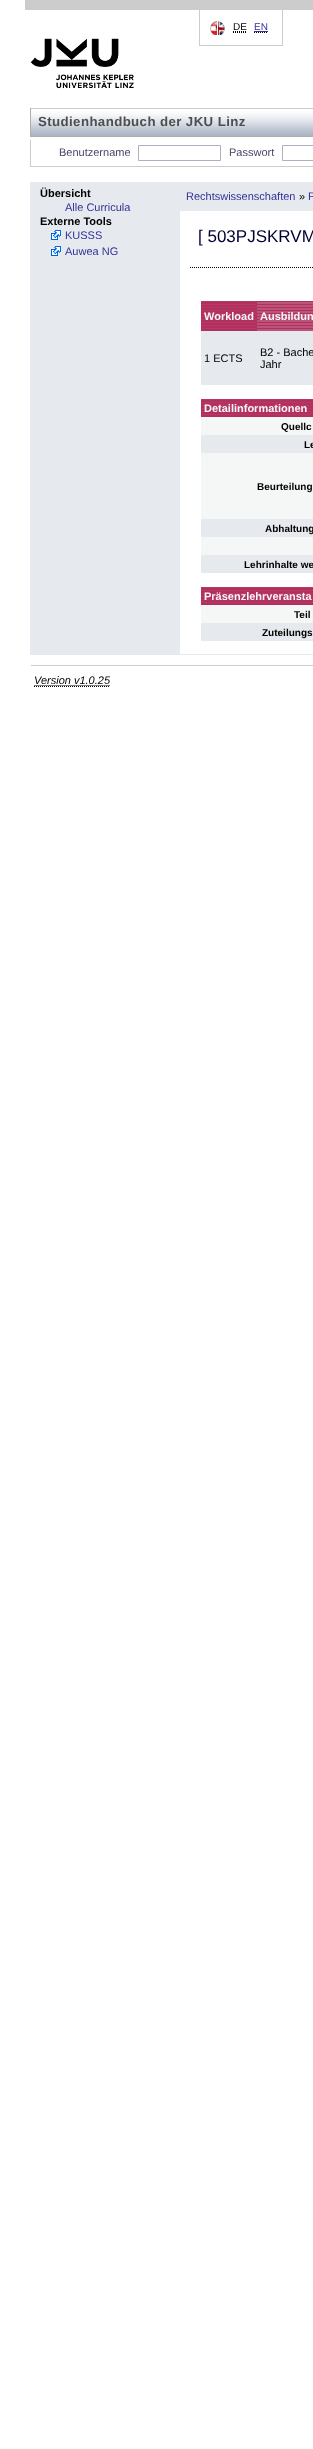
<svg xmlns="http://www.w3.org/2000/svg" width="313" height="2449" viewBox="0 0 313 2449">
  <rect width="100%" height="100%" fill="#fff"/>
  <path d="M25 0h288v10H25z" fill="#ccc"/>
  <path d="M282 10h1v36H282z" fill="#ccc"/>
  <path d="M199 45h84v1H199z" fill="#ccc"/>
  <path d="M199 10h1v36H199z" fill="#ccc"/>
  <image x="210" y="21" width="15" height="14" href="img/1.png"/>
  <path d="M233 32.5H246M233 31.5H246.5" fill="none" stroke="#000" stroke-dasharray="1 1"/>
  <path d="M254 32.5H268" fill="none" stroke="#000" stroke-dasharray="1 1"/>
  <path d="M254 31h14v1H254z" fill="#333298"/>
  <image x="30" y="38" width="104" height="51" href="img/2.png"/>
  <image x="31" y="108" width="282" height="28" href="img/3.png"/>
  <path d="M30 136h283v1H30z" fill="#aeaeae"/>
  <path d="M30 108h1v29H30z" fill="#aeaeae"/>
  <path d="M30 166h283v1H30z" fill="#ccc"/>
  <path d="M30 140h1v27H30z" fill="#ccc"/>
  <path d="M138.5 145.5h82v15H138.5z" fill="none" stroke="#b0aec3"/>
  <path d="M282.5 145.5h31v15H282.5z" fill="none" stroke="#b0aec3"/>
  <path d="M30 182h150v472H30z" fill="#e6e9ee"/>
  <image x="51" y="230" width="10" height="10" href="img/4.png"/>
  <image x="51" y="246" width="10" height="10" href="img/4.png"/>
  <path d="M180 182h133v29H180z" fill="#e6e9ee"/>
  <path d="M190 267.5H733" fill="none" stroke="#000" stroke-dasharray="1 1"/>
  <image x="201" y="301" width="56" height="30" href="img/5.png"/>
  <image x="257" y="301" width="56" height="30" href="img/6.png"/>
  <path d="M201 331h112v54H201z" fill="#e6e9ed"/>
  <image x="201" y="399" width="112" height="18" href="img/7.png"/>
  <path d="M201 417h112v18H201z" fill="#f5f7f7"/>
  <path d="M201 435h112v18H201z" fill="#e6e9ed"/>
  <path d="M201 453h112v66H201z" fill="#f5f7f7"/>
  <path d="M201 519h112v18H201z" fill="#e6e9ed"/>
  <path d="M201 537h112v18H201z" fill="#f5f7f7"/>
  <path d="M201 555h112v18H201z" fill="#e6e9ed"/>
  <image x="201" y="587" width="112" height="18" href="img/7.png"/>
  <path d="M201 605h112v18H201z" fill="#f5f7f7"/>
  <path d="M201 623h112v18H201z" fill="#e6e9ed"/>
  <path d="M30 654h283v1H30z" fill="#e6e9ee"/>
  <path d="M31 665h282v1H31z" fill="#ccc"/>
  <path d="M34 686.5H110" fill="none" stroke="#000" stroke-dasharray="1 1"/>
  <path d="M34.5 685.5H110.5" fill="none" stroke="#000" stroke-dasharray="1 1"/>
  <text x="233" y="30" font-family="Liberation Sans" font-size="10" fill="#000">DE</text>
  <text x="254" y="30" font-family="Liberation Sans" font-size="10" fill="#333298">EN</text>
  <text x="38" y="126" font-family="Liberation Sans" font-size="13.25" font-weight="bold" letter-spacing="0.4" fill="#4e4e4e">Studienhandbuch der JKU Linz</text>
  <g font-family="Liberation Sans" font-size="11" fill="#474766">
    <text x="59" y="156">Benutzername</text>
    <text x="229" y="156">Passwort</text>
  </g>
  <text x="40" y="197" font-family="Liberation Sans" font-size="11" font-weight="bold" fill="#000">Übersicht</text>
  <text x="65" y="211" font-family="Liberation Sans" font-size="11" fill="#333298">Alle Curricula</text>
  <text x="40" y="225" font-family="Liberation Sans" font-size="11" font-weight="bold" fill="#000">Externe Tools</text>
  <g font-family="Liberation Sans" font-size="11" fill="#333298">
    <text x="65" y="239">KUSSS</text>
    <text x="65" y="255">Auwea NG</text>
    <text x="186" y="200">Rechtswissenschaften</text>
  </g>
  <text x="299" y="200" font-family="Liberation Sans" font-size="11" fill="#000">»</text>
  <text x="308" y="200" font-family="Liberation Sans" font-size="11" fill="#333298">P</text>
  <text x="198" y="242" font-family="Liberation Sans" font-size="17" fill="#003">[ 503PJSKRVM</text>
  <g font-family="Liberation Sans" font-size="11" font-weight="bold" fill="#f7f7f7">
    <text x="204" y="320">Workload</text>
    <text x="260" y="320">Ausbildun</text>
  </g>
  <g font-family="Liberation Sans" font-size="11" fill="#000">
    <text x="204" y="362">1 ECTS</text>
    <text x="260" y="356">B2 - Bache</text>
    <text x="260" y="368">Jahr</text>
  </g>
  <text x="204" y="412" font-family="Liberation Sans" font-size="11" font-weight="bold" fill="#f7f7f7">Detailinformationen</text>
  <g font-family="Liberation Sans" font-size="10" font-weight="bold" fill="#000">
    <text x="281" y="430">Quellc</text>
    <text x="304" y="448">Le</text>
    <text x="257" y="490">Beurteilung</text>
    <text x="265" y="532">Abhaltung</text>
    <text x="244" y="568">Lehrinhalte we</text>
  </g>
  <text x="204" y="600" font-family="Liberation Sans" font-size="11" font-weight="bold" fill="#f7f7f7">Präsenzlehrveransta</text>
  <g font-family="Liberation Sans" font-size="10" font-weight="bold" fill="#000">
    <text x="294" y="618">Teil</text>
    <text x="262" y="636">Zuteilungs</text>
  </g>
  <text x="34" y="684" font-family="Liberation Sans" font-size="11" font-style="italic" fill="#000">Version v1.0.25</text>
</svg>
